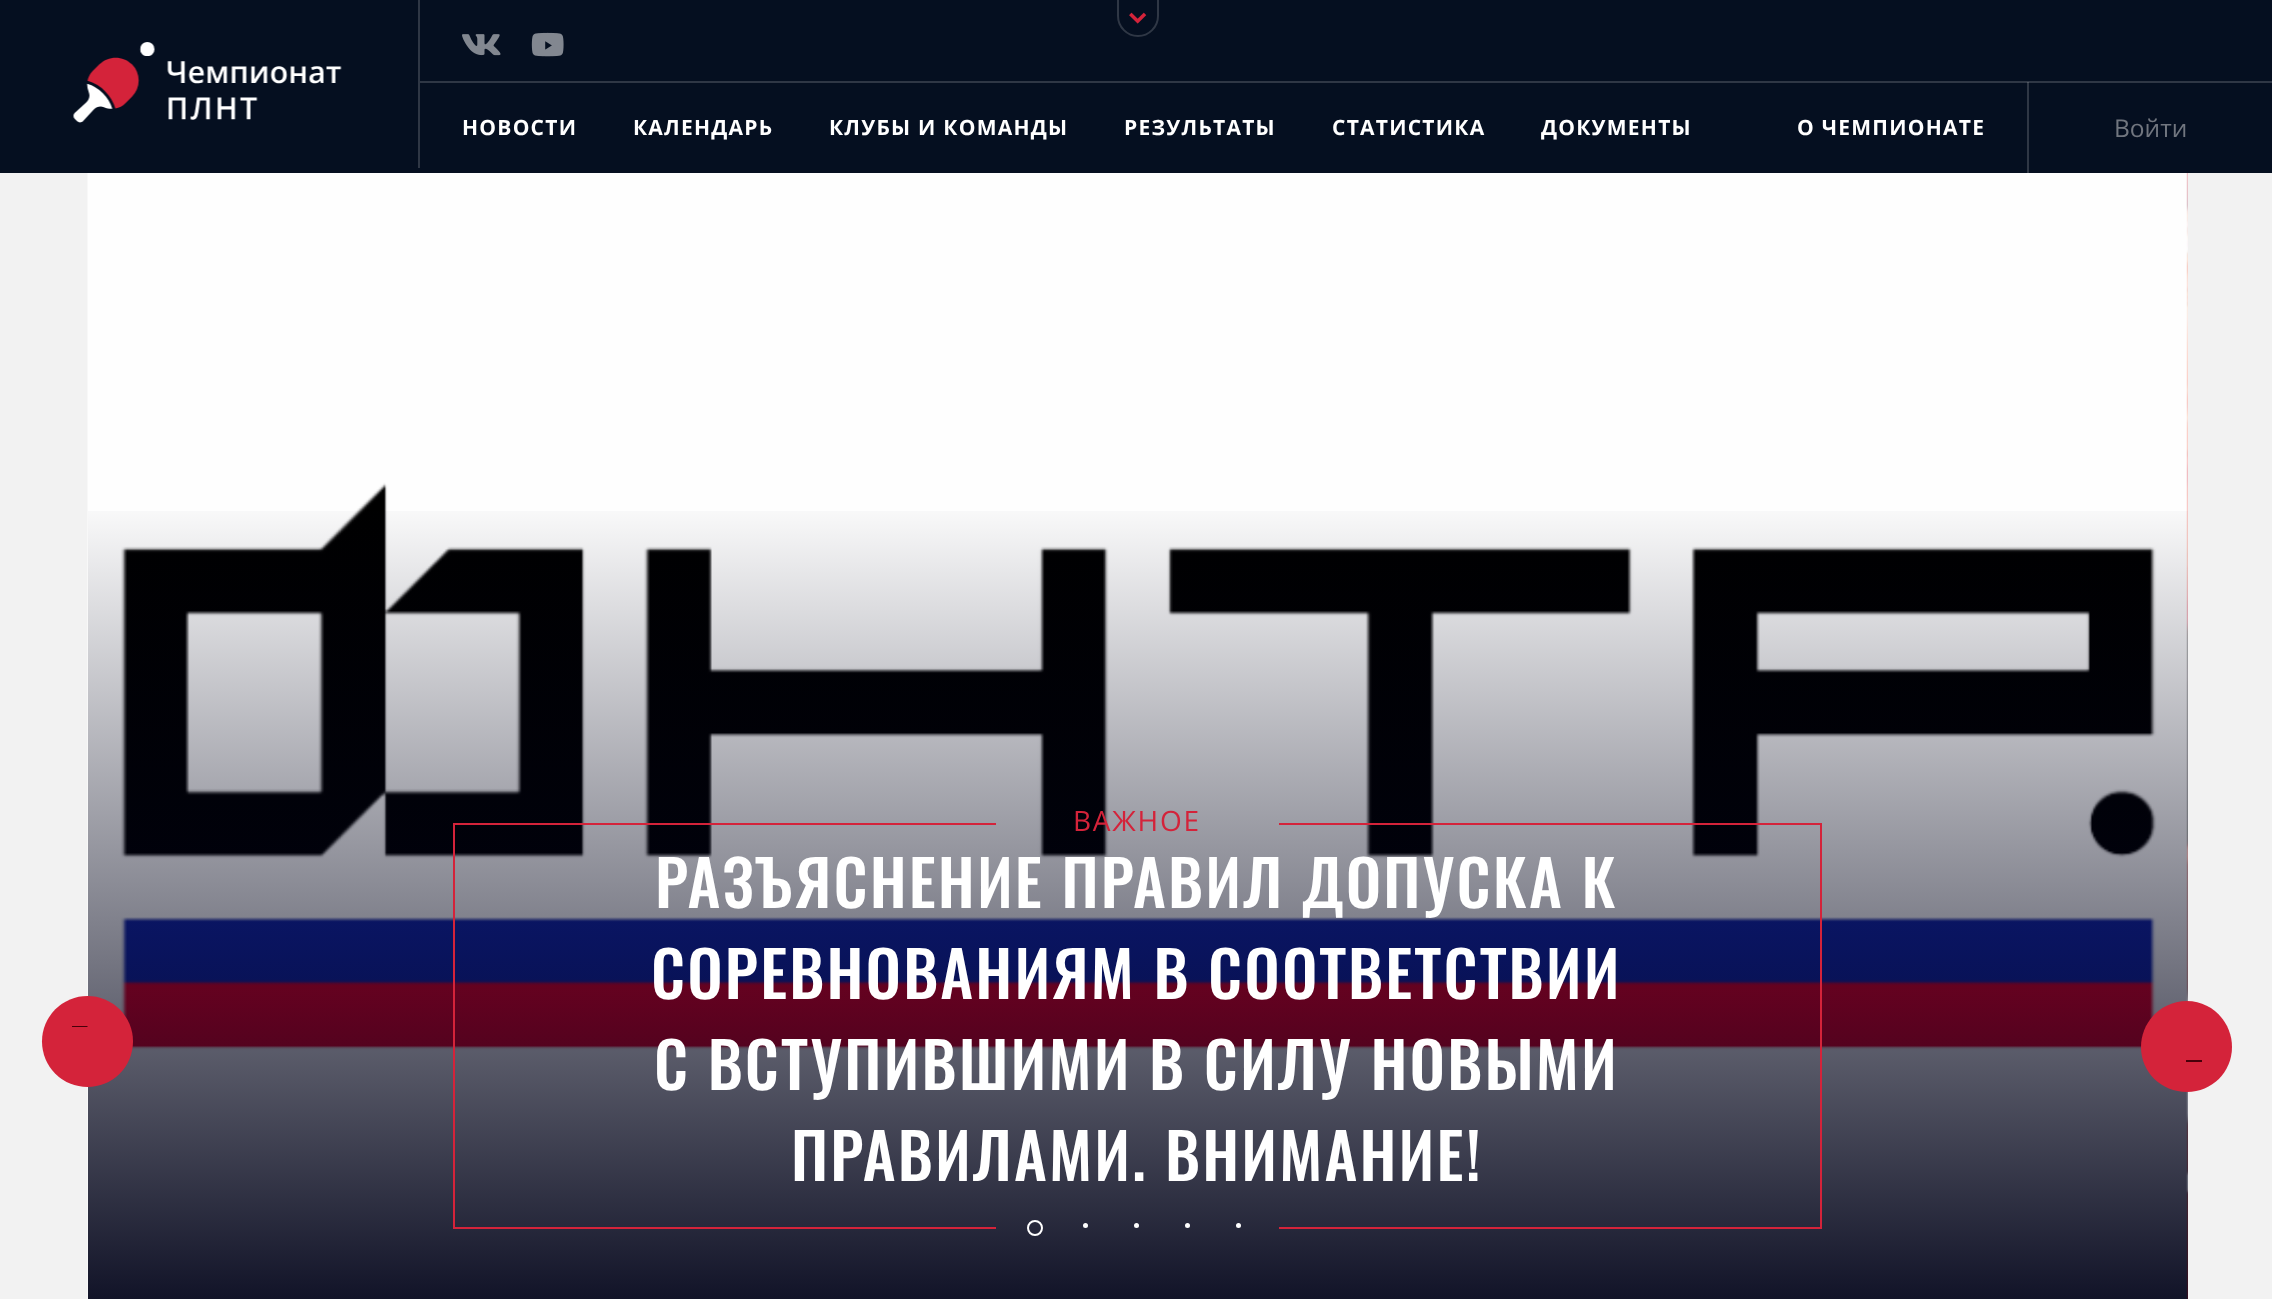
<svg xmlns="http://www.w3.org/2000/svg" width="2272" height="1299" viewBox="0 0 2272 1299">
  <defs>
    <linearGradient id="g1" gradientUnits="userSpaceOnUse" x1="1138" y1="492" x2="1138" y2="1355"><stop offset="0" stop-color="#010319" stop-opacity="0"/><stop offset="1" stop-color="#010319"/></linearGradient>
    <clipPath id="clip1"><path d="M72 1026h31v31H72z"/></clipPath>
    <clipPath id="clip2"><path d="M2172 1031h30v31H2172z"/></clipPath>
  </defs>
  <rect width="100%" height="100%" fill="#f2f2f2"/>
  <path d="M0 0h2272v173H0z" fill="#050f20"/>
  <path d="M2027 82h2v91H2027z" fill="#2f3745"/>
  <path d="M418 0h2v168H418z" fill="#2f3745"/>
  <image x="73" y="42" width="269" height="81" href="img/1.png"/>
  <path d="M1118-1H1158V16C1158 27 1149 36 1138 36C1127 36 1118 27 1118 16Z" fill="none" stroke="#2f3745" stroke-width="2"/>
  <image x="1129" y="12" width="18" height="12" href="img/2.png"/>
  <path d="M420 81h1852v2H420z" fill="#2f3745"/>
  <path d="M2027 82h2v1H2027z" fill="#515762"/>
  <image x="462" y="34" width="39" height="22" href="img/3.png"/>
  <image x="531" y="32" width="33" height="25" href="img/4.png"/>
  <image x="87" y="173" width="2101" height="1126" href="img/5.png"/>
  <path d="M88 511h2100v788H88z" fill="url(#g1)"/>
  <circle cx="87.5" cy="1041.5" r="45.5" fill="#d4233a"/>
  <g clip-path="url(#clip1)">
    <path d="M62.5 1027L70.5 1035.5L68.5 1038L56 1025.5L68.5 1013L70.5 1015.5L62 1024H87.5V1027Z" fill="#48000a"/>
  </g>
  <path d="M1820 823h2v406H1820z" fill="#d4233a"/>
  <path d="M453 823h2v406H453z" fill="#d4233a"/>
  <path d="M455 823h541v2H455z" fill="#d4233a"/>
  <path d="M1279 823h541v2H1279z" fill="#d4233a"/>
  <path d="M455 1227h541v2H455z" fill="#d4233a"/>
  <path d="M1279 1227h541v2H1279z" fill="#d4233a"/>
  <image x="2186" y="173" width="2" height="1126" href="img/6.png"/>
  <path d="M2187 1092C2161 1092 2141 1072 2141 1047C2141 1022 2161 1001 2187 1001C2212 1001 2232 1022 2232 1047C2232 1072 2212 1092 2187 1092Z" fill="#d4233a"/>
  <g clip-path="url(#clip2)">
    <path d="M2211 1060L2202.5 1052L2205 1049.5L2217 1062L2205 1074.5L2202.5 1072L2211 1063.5H2186V1060Z" fill="#48000a"/>
  </g>
  <circle cx="1035" cy="1228" r="7" fill="none" stroke="#fff" stroke-width="2"/>
  <circle cx="1085.5" cy="1225.5" r="2.5" fill="#fff"/>
  <circle cx="1136.5" cy="1225.5" r="2.5" fill="#fff"/>
  <circle cx="1187.5" cy="1225.5" r="2.5" fill="#fff"/>
  <circle cx="1238.5" cy="1225.5" r="2.5" fill="#fff"/>
  <g font-family="Open Sans" font-size="21" font-weight="bold" letter-spacing="1.25" fill="#fff">
    <text x="462" y="135">НОВОСТИ</text>
    <text x="633" y="135">КАЛЕНДАРЬ</text>
    <text x="829" y="135">КЛУБЫ И КОМАНДЫ</text>
    <text x="1124" y="135">РЕЗУЛЬТАТЫ</text>
    <text x="1332" y="135">СТАТИСТИКА</text>
    <text x="1541" y="135">ДОКУМЕНТЫ</text>
    <text x="1797" y="135">О ЧЕМПИОНАТЕ</text>
  </g>
  <text x="2114" y="137" font-family="Open Sans" font-size="24.5" fill="#71767f">Войти</text>
  <text x="1073" y="831" font-family="Open Sans" font-size="28" letter-spacing="1.75" fill="#d4233a">ВАЖНОЕ</text>
  <g font-family="Oswald" font-size="63" font-weight="500" letter-spacing="2.15" fill="#fff">
    <text x="655" y="908">РАЗЪЯСНЕНИЕ ПРАВИЛ ДОПУСКА К</text>
    <text x="651" y="999">СОРЕВНОВАНИЯМ В СООТВЕТСТВИИ</text>
    <text x="654" y="1090">С ВСТУПИВШИМИ В СИЛУ НОВЫМИ</text>
    <text x="791" y="1181">ПРАВИЛАМИ</text>
  </g>
  <text x="1132" y="1181" font-family="'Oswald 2'" font-size="63" font-weight="500" letter-spacing="2.15" fill="#fff">.</text>
  <text x="1165" y="1181" font-family="Oswald" font-size="63" font-weight="500" letter-spacing="2.15" fill="#fff">ВНИМАНИЕ</text>
  <text x="1466" y="1181" font-family="'Oswald 2'" font-size="63" font-weight="500" letter-spacing="2.15" fill="#fff">!</text>
</svg>
